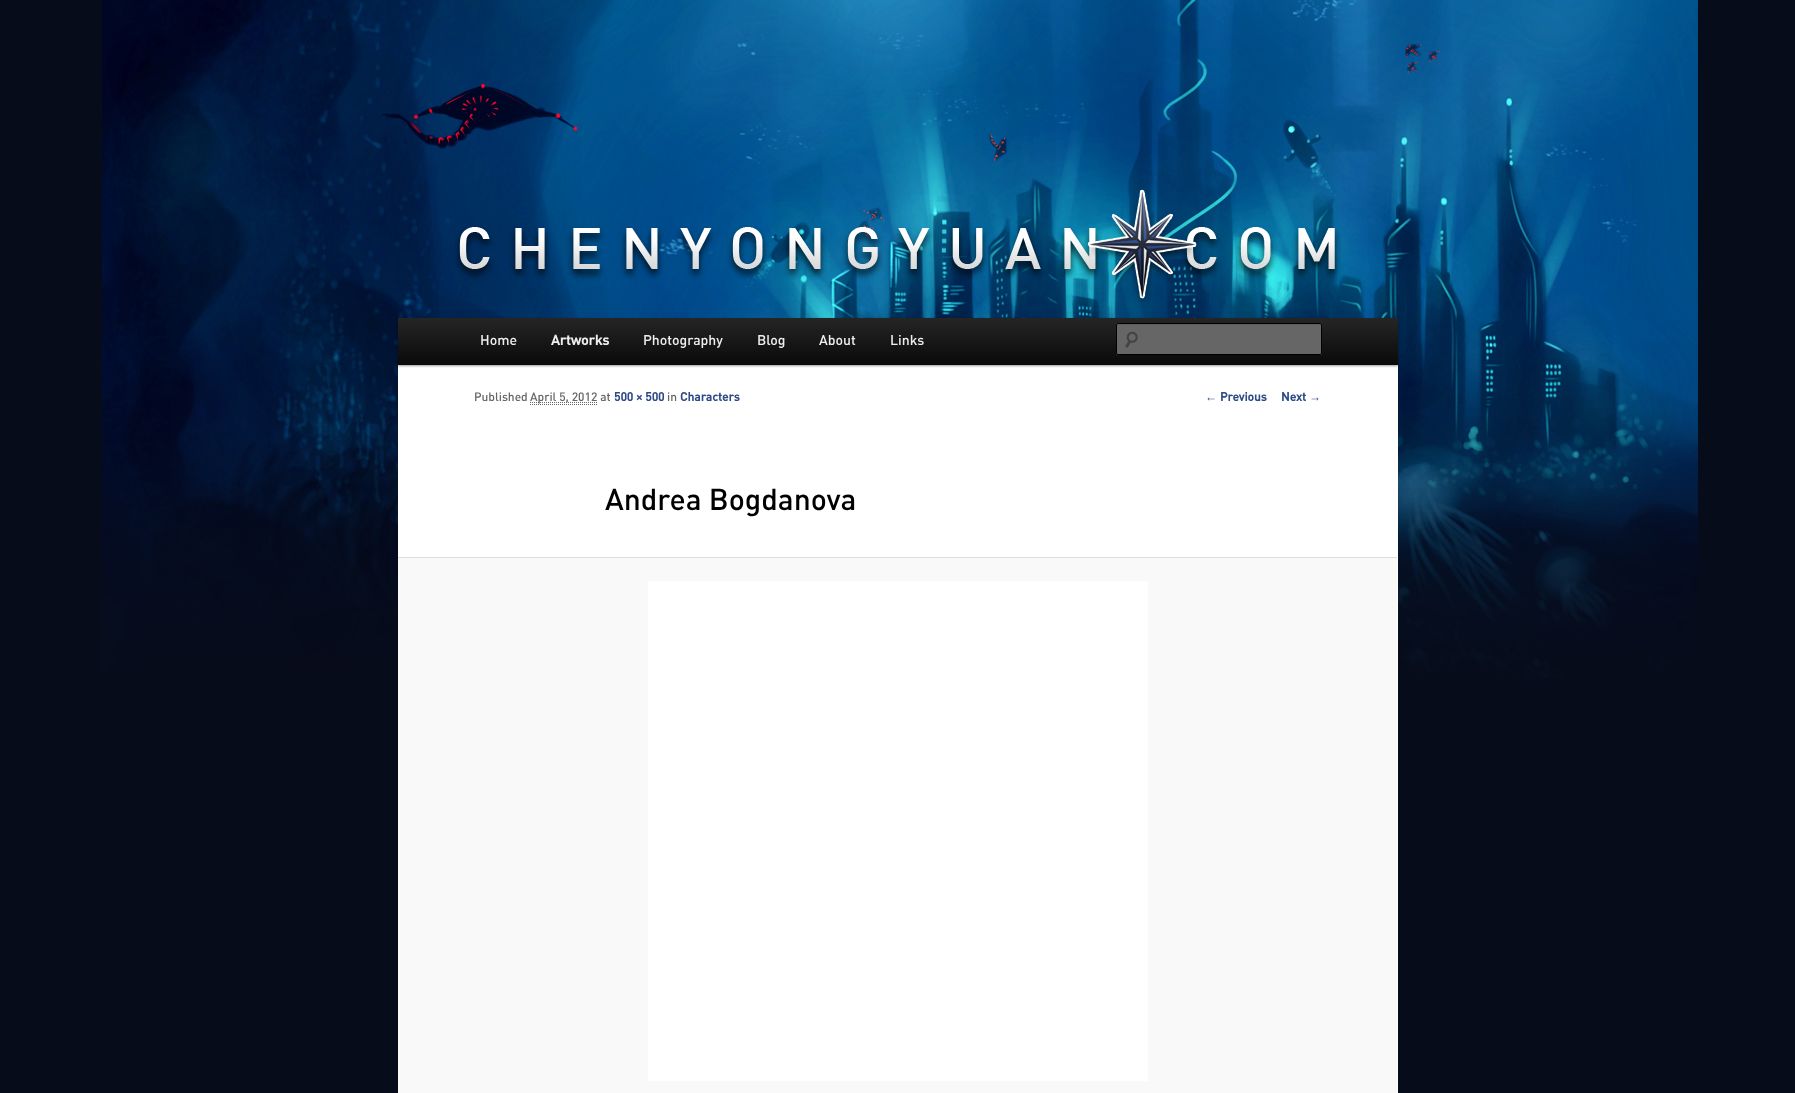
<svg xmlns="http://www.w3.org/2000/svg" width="1795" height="1093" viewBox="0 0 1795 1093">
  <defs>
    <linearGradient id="g1" gradientUnits="userSpaceOnUse" x1="898" y1="318" x2="898" y2="365"><stop offset="0" stop-color="#252525"/><stop offset="1" stop-color="#0a0a0a"/></linearGradient>
  </defs>
  <rect width="100%" height="100%" fill="#070c1a"/>
  <image x="102" y="0" width="1596" height="678" href="img/1.png"/>
  <image x="455" y="189" width="886" height="114" href="img/2.png"/>
  <path d="M398 365h1000v728H398z" fill="#fff"/>
  <path d="M398 319h1000v47H398z" fill="#00000066" filter="blur(1px)"/>
  <path d="M398 318h1000v47H398z" fill="url(#g1)"/>
  <rect x="1116" y="323" width="206" height="32" rx="2" fill="#666"/>
  <image x="1125" y="331" width="13" height="17" href="img/3.png"/>
  <path d="M1118 325H1321V326C1321 325 1321 324 1320 324H1118H1117V326C1117 325 1117 325 1118 325Z" fill="#5c5c5c"/>
  <rect x="1116.5" y="323.5" width="205" height="31" rx="1.5" fill="none" stroke="#000"/>
  <path d="M530 404.5H597" fill="none" stroke="#666" stroke-dasharray="1 1"/>
  <path d="M530 402.5H597.5" fill="none" stroke="#666" stroke-dasharray="1 1"/>
  <path d="M398 558h999v535H398z" fill="#f9f9f9"/>
  <path d="M398 557h999v1H398z" fill="#ddd"/>
  <path d="M648 581h500v500H648z" fill="#fff"/>
  <text x="480" y="345" font-family="DIN" font-size="14" font-weight="500" fill="#eee">Home</text>
  <text x="551" y="345" font-family="DIN" font-size="14" font-weight="bold" fill="#eee">Artworks</text>
  <g font-family="DIN" font-size="14" font-weight="500" fill="#eee">
    <text x="643" y="345">Photography</text>
    <text x="757" y="345">Blog</text>
    <text x="819" y="345">About</text>
    <text x="890" y="345">Links</text>
  </g>
  <g font-family="DIN" font-size="12" font-weight="500" fill="#666">
    <text x="474" y="401">Published</text>
    <text x="530" y="401">April 5, 2012 at</text>
  </g>
  <text x="614" y="401" font-family="DIN" font-size="12" font-weight="bold" fill="#2e4b85">500 × 500</text>
  <text x="667" y="401" font-family="DIN" font-size="12" font-weight="500" fill="#666">in</text>
  <text x="680" y="401" font-family="DIN" font-size="12" font-weight="bold" fill="#2e4b85">Characters</text>
  <text x="605" y="510" font-family="DIN" font-size="30" font-weight="500" fill="#000">Andrea Bogdanova</text>
  <text x="1205" y="401" font-family="Liberation Serif" font-size="12" font-weight="bold" fill="#2e4b85">←</text>
  <g font-family="DIN" font-size="12" font-weight="bold" fill="#2e4b85">
    <text x="1220" y="401">Previous</text>
    <text x="1281" y="401">Next</text>
  </g>
  <text x="1309" y="401" font-family="Liberation Serif" font-size="12" font-weight="bold" fill="#2e4b85">→</text>
</svg>
